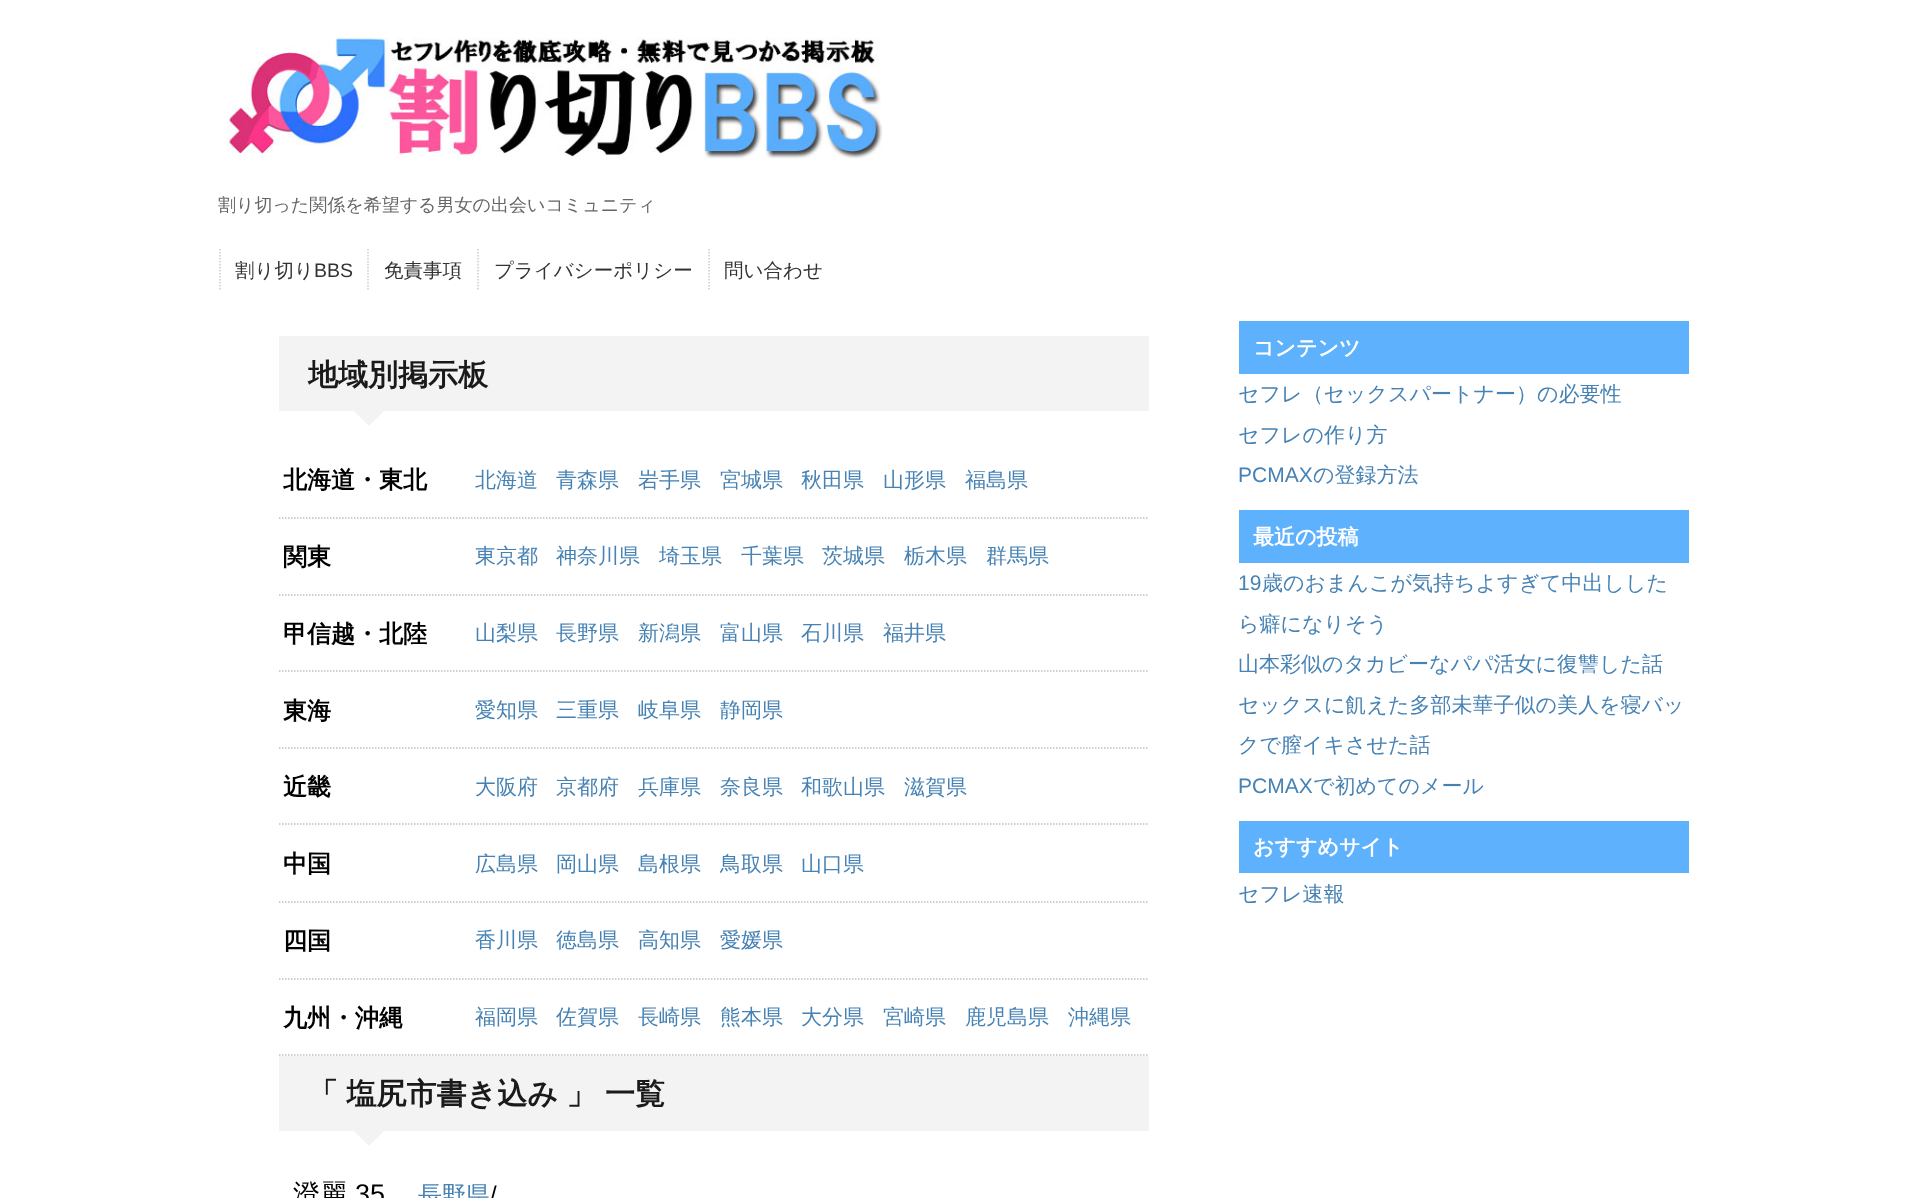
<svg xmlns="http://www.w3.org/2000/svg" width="1906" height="1198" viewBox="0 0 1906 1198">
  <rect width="100%" height="100%" fill="#fff"/>
  <image x="227" y="37" width="656" height="124" href="img/1.png"/>
  <path d="M220 249V291" fill="none" stroke="#ccc" stroke-width="1.5" stroke-dasharray="1.5 1.5"/>
  <path d="M368 249V291" fill="none" stroke="#ccc" stroke-width="1.5" stroke-dasharray="1.5 1.5"/>
  <path d="M478 249V291" fill="none" stroke="#ccc" stroke-width="1.5" stroke-dasharray="1.5 1.5"/>
  <path d="M709 249V291" fill="none" stroke="#ccc" stroke-width="1.5" stroke-dasharray="1.5 1.5"/>
  <path d="M279 336h870v75H279z" fill="#f3f3f3"/>
  <path d="M354 411H384L369 426Z" fill="#f3f3f3"/>
  <path d="M357 411C356 411 355.5 411.5 355 412L361.5 418.5H376.5L383 412C382.5 411.5 382 411 381 411Z" fill="#f3f3f3"/>
  <path d="M279 518H1149" fill="none" stroke="#c0c0c0" stroke-width="1.5" stroke-dasharray="1.5 1.5"/>
  <path d="M279 595H1149" fill="none" stroke="#c0c0c0" stroke-width="1.5" stroke-dasharray="1.5 1.5"/>
  <path d="M279 671H1149" fill="none" stroke="#c0c0c0" stroke-width="1.5" stroke-dasharray="1.5 1.5"/>
  <path d="M279 748H1149" fill="none" stroke="#c0c0c0" stroke-width="1.5" stroke-dasharray="1.5 1.5"/>
  <path d="M279 824H1149" fill="none" stroke="#c0c0c0" stroke-width="1.5" stroke-dasharray="1.5 1.5"/>
  <path d="M279 902H1149" fill="none" stroke="#c0c0c0" stroke-width="1.5" stroke-dasharray="1.5 1.5"/>
  <path d="M279 979H1149" fill="none" stroke="#c0c0c0" stroke-width="1.5" stroke-dasharray="1.5 1.5"/>
  <path d="M279 1055H1149" fill="none" stroke="#c0c0c0" stroke-width="1.5" stroke-dasharray="1.5 1.5"/>
  <path d="M279 1056h870v75H279z" fill="#f3f3f3"/>
  <path d="M354 1131H384L369 1146Z" fill="#f3f3f3"/>
  <path d="M357 1131C356 1131 355.5 1131.5 355 1132L361.5 1138.5H376.5L383 1132C382.5 1131.5 382 1131 381 1131Z" fill="#f3f3f3"/>
  <path d="M1239 321h450v53H1239z" fill="#5eb1fd"/>
  <path d="M1239 510h450v53H1239z" fill="#5eb1fd"/>
  <path d="M1239 821h450v52H1239z" fill="#5eb1fd"/>
  <text x="218" y="211" font-family="WenQuanYi Zen Hei" font-size="18" font-weight="500" fill="#666">割り切った関係を希望する男女の出会いコミュニティ</text>
  <text x="235" y="277" font-family="WenQuanYi Zen Hei" font-size="19.5" font-weight="500" fill="#333">割り切り</text>
  <text x="314" y="277" font-family="Liberation Sans" font-size="19.5" fill="#333">BBS</text>
  <g font-family="WenQuanYi Zen Hei" font-size="19.5" font-weight="500" fill="#333">
    <text x="384" y="277">免責事項</text>
    <text x="494" y="277">プライバシーポリシー</text>
    <text x="724" y="277">問い合わせ</text>
  </g>
  <text x="308" y="385" font-family="WenQuanYi Zen Hei" font-size="30" font-weight="bold" fill="#1a1a1a">地域別掲示板</text>
  <text x="283" y="488" font-family="WenQuanYi Zen Hei" font-size="24" font-weight="bold" fill="#000">北海道・東北</text>
  <g font-family="WenQuanYi Zen Hei" font-size="21" font-weight="500" fill="#4682b4">
    <text x="475" y="487">北海道</text>
    <text x="556" y="487">青森県</text>
    <text x="638" y="487">岩手県</text>
    <text x="720" y="487">宮城県</text>
    <text x="801" y="487">秋田県</text>
    <text x="883" y="487">山形県</text>
    <text x="965" y="487">福島県</text>
  </g>
  <text x="283" y="565" font-family="WenQuanYi Zen Hei" font-size="24" font-weight="bold" fill="#000">関東</text>
  <g font-family="WenQuanYi Zen Hei" font-size="21" font-weight="500" fill="#4682b4">
    <text x="475" y="563">東京都</text>
    <text x="556" y="563">神奈川県</text>
    <text x="659" y="563">埼玉県</text>
    <text x="741" y="563">千葉県</text>
    <text x="822" y="563">茨城県</text>
    <text x="904" y="563">栃木県</text>
    <text x="986" y="563">群馬県</text>
  </g>
  <text x="283" y="642" font-family="WenQuanYi Zen Hei" font-size="24" font-weight="bold" fill="#000">甲信越・北陸</text>
  <g font-family="WenQuanYi Zen Hei" font-size="21" font-weight="500" fill="#4682b4">
    <text x="475" y="640">山梨県</text>
    <text x="556" y="640">長野県</text>
    <text x="638" y="640">新潟県</text>
    <text x="720" y="640">富山県</text>
    <text x="801" y="640">石川県</text>
    <text x="883" y="640">福井県</text>
  </g>
  <text x="283" y="719" font-family="WenQuanYi Zen Hei" font-size="24" font-weight="bold" fill="#000">東海</text>
  <g font-family="WenQuanYi Zen Hei" font-size="21" font-weight="500" fill="#4682b4">
    <text x="475" y="717">愛知県</text>
    <text x="556" y="717">三重県</text>
    <text x="638" y="717">岐阜県</text>
    <text x="720" y="717">静岡県</text>
  </g>
  <text x="283" y="795" font-family="WenQuanYi Zen Hei" font-size="24" font-weight="bold" fill="#000">近畿</text>
  <g font-family="WenQuanYi Zen Hei" font-size="21" font-weight="500" fill="#4682b4">
    <text x="475" y="794">大阪府</text>
    <text x="556" y="794">京都府</text>
    <text x="638" y="794">兵庫県</text>
    <text x="720" y="794">奈良県</text>
    <text x="801" y="794">和歌山県</text>
    <text x="904" y="794">滋賀県</text>
  </g>
  <text x="283" y="872" font-family="WenQuanYi Zen Hei" font-size="24" font-weight="bold" fill="#000">中国</text>
  <g font-family="WenQuanYi Zen Hei" font-size="21" font-weight="500" fill="#4682b4">
    <text x="475" y="871">広島県</text>
    <text x="556" y="871">岡山県</text>
    <text x="638" y="871">島根県</text>
    <text x="720" y="871">鳥取県</text>
    <text x="801" y="871">山口県</text>
  </g>
  <text x="283" y="949" font-family="WenQuanYi Zen Hei" font-size="24" font-weight="bold" fill="#000">四国</text>
  <g font-family="WenQuanYi Zen Hei" font-size="21" font-weight="500" fill="#4682b4">
    <text x="475" y="947">香川県</text>
    <text x="556" y="947">徳島県</text>
    <text x="638" y="947">高知県</text>
    <text x="720" y="947">愛媛県</text>
  </g>
  <text x="283" y="1026" font-family="WenQuanYi Zen Hei" font-size="24" font-weight="bold" fill="#000">九州・沖縄</text>
  <g font-family="WenQuanYi Zen Hei" font-size="21" font-weight="500" fill="#4682b4">
    <text x="475" y="1024">福岡県</text>
    <text x="556" y="1024">佐賀県</text>
    <text x="638" y="1024">長崎県</text>
    <text x="720" y="1024">熊本県</text>
    <text x="801" y="1024">大分県</text>
    <text x="883" y="1024">宮崎県</text>
    <text x="965" y="1024">鹿児島県</text>
    <text x="1068" y="1024">沖縄県</text>
  </g>
  <text x="308" y="1104" word-spacing="-0.5" font-family="WenQuanYi Zen Hei" font-size="30" font-weight="bold" fill="#1a1a1a">「 塩尻市書き込み 」 一覧</text>
  <text x="293" y="1203" font-family="WenQuanYi Zen Hei" font-size="27" font-weight="500" fill="#000">澄麗</text>
  <text x="355" y="1203" font-family="Liberation Sans" font-size="27" fill="#000">35</text>
  <text x="418" y="1203" font-family="WenQuanYi Zen Hei" font-size="24" font-weight="500" fill="#4682b4">長野県</text>
  <text x="490" y="1203" font-family="Liberation Sans" font-size="24" fill="#000">/</text>
  <text x="1253" y="355" font-family="WenQuanYi Zen Hei" font-size="21" font-weight="bold" fill="#fff">コンテンツ</text>
  <g font-family="WenQuanYi Zen Hei" font-size="21" font-weight="500" fill="#4682b4">
    <text x="1238" y="401">セフレ（セックスパートナー）の必要性</text>
    <text x="1238" y="442">セフレの作り方</text>
  </g>
  <text x="1238" y="482" font-family="Liberation Sans" font-size="21" fill="#4682b4">PCMAX</text>
  <text x="1313" y="482" font-family="WenQuanYi Zen Hei" font-size="21" font-weight="500" fill="#4682b4">の登録方法</text>
  <text x="1253" y="544" font-family="WenQuanYi Zen Hei" font-size="21" font-weight="bold" fill="#fff">最近の投稿</text>
  <text x="1238" y="590" font-family="Liberation Sans" font-size="21" fill="#4682b4">19</text>
  <g font-family="WenQuanYi Zen Hei" font-size="21" font-weight="500" fill="#4682b4">
    <text x="1262" y="590">歳のおまんこが気持ちよすぎて中出しした</text>
    <text x="1238" y="631">ら癖になりそう</text>
    <text x="1238" y="671">山本彩似のタカビーなパパ活女に復讐した話</text>
    <text x="1238" y="712">セックスに飢えた多部未華子似の美人を寝バッ</text>
    <text x="1238" y="752">クで膣イキさせた話</text>
  </g>
  <text x="1238" y="793" font-family="Liberation Sans" font-size="21" fill="#4682b4">PCMAX</text>
  <text x="1313" y="793" font-family="WenQuanYi Zen Hei" font-size="21" font-weight="500" fill="#4682b4">で初めてのメール</text>
  <text x="1253" y="854" font-family="WenQuanYi Zen Hei" font-size="21" font-weight="bold" fill="#fff">おすすめサイト</text>
  <text x="1238" y="901" font-family="WenQuanYi Zen Hei" font-size="21" font-weight="500" fill="#4682b4">セフレ速報</text>
</svg>
